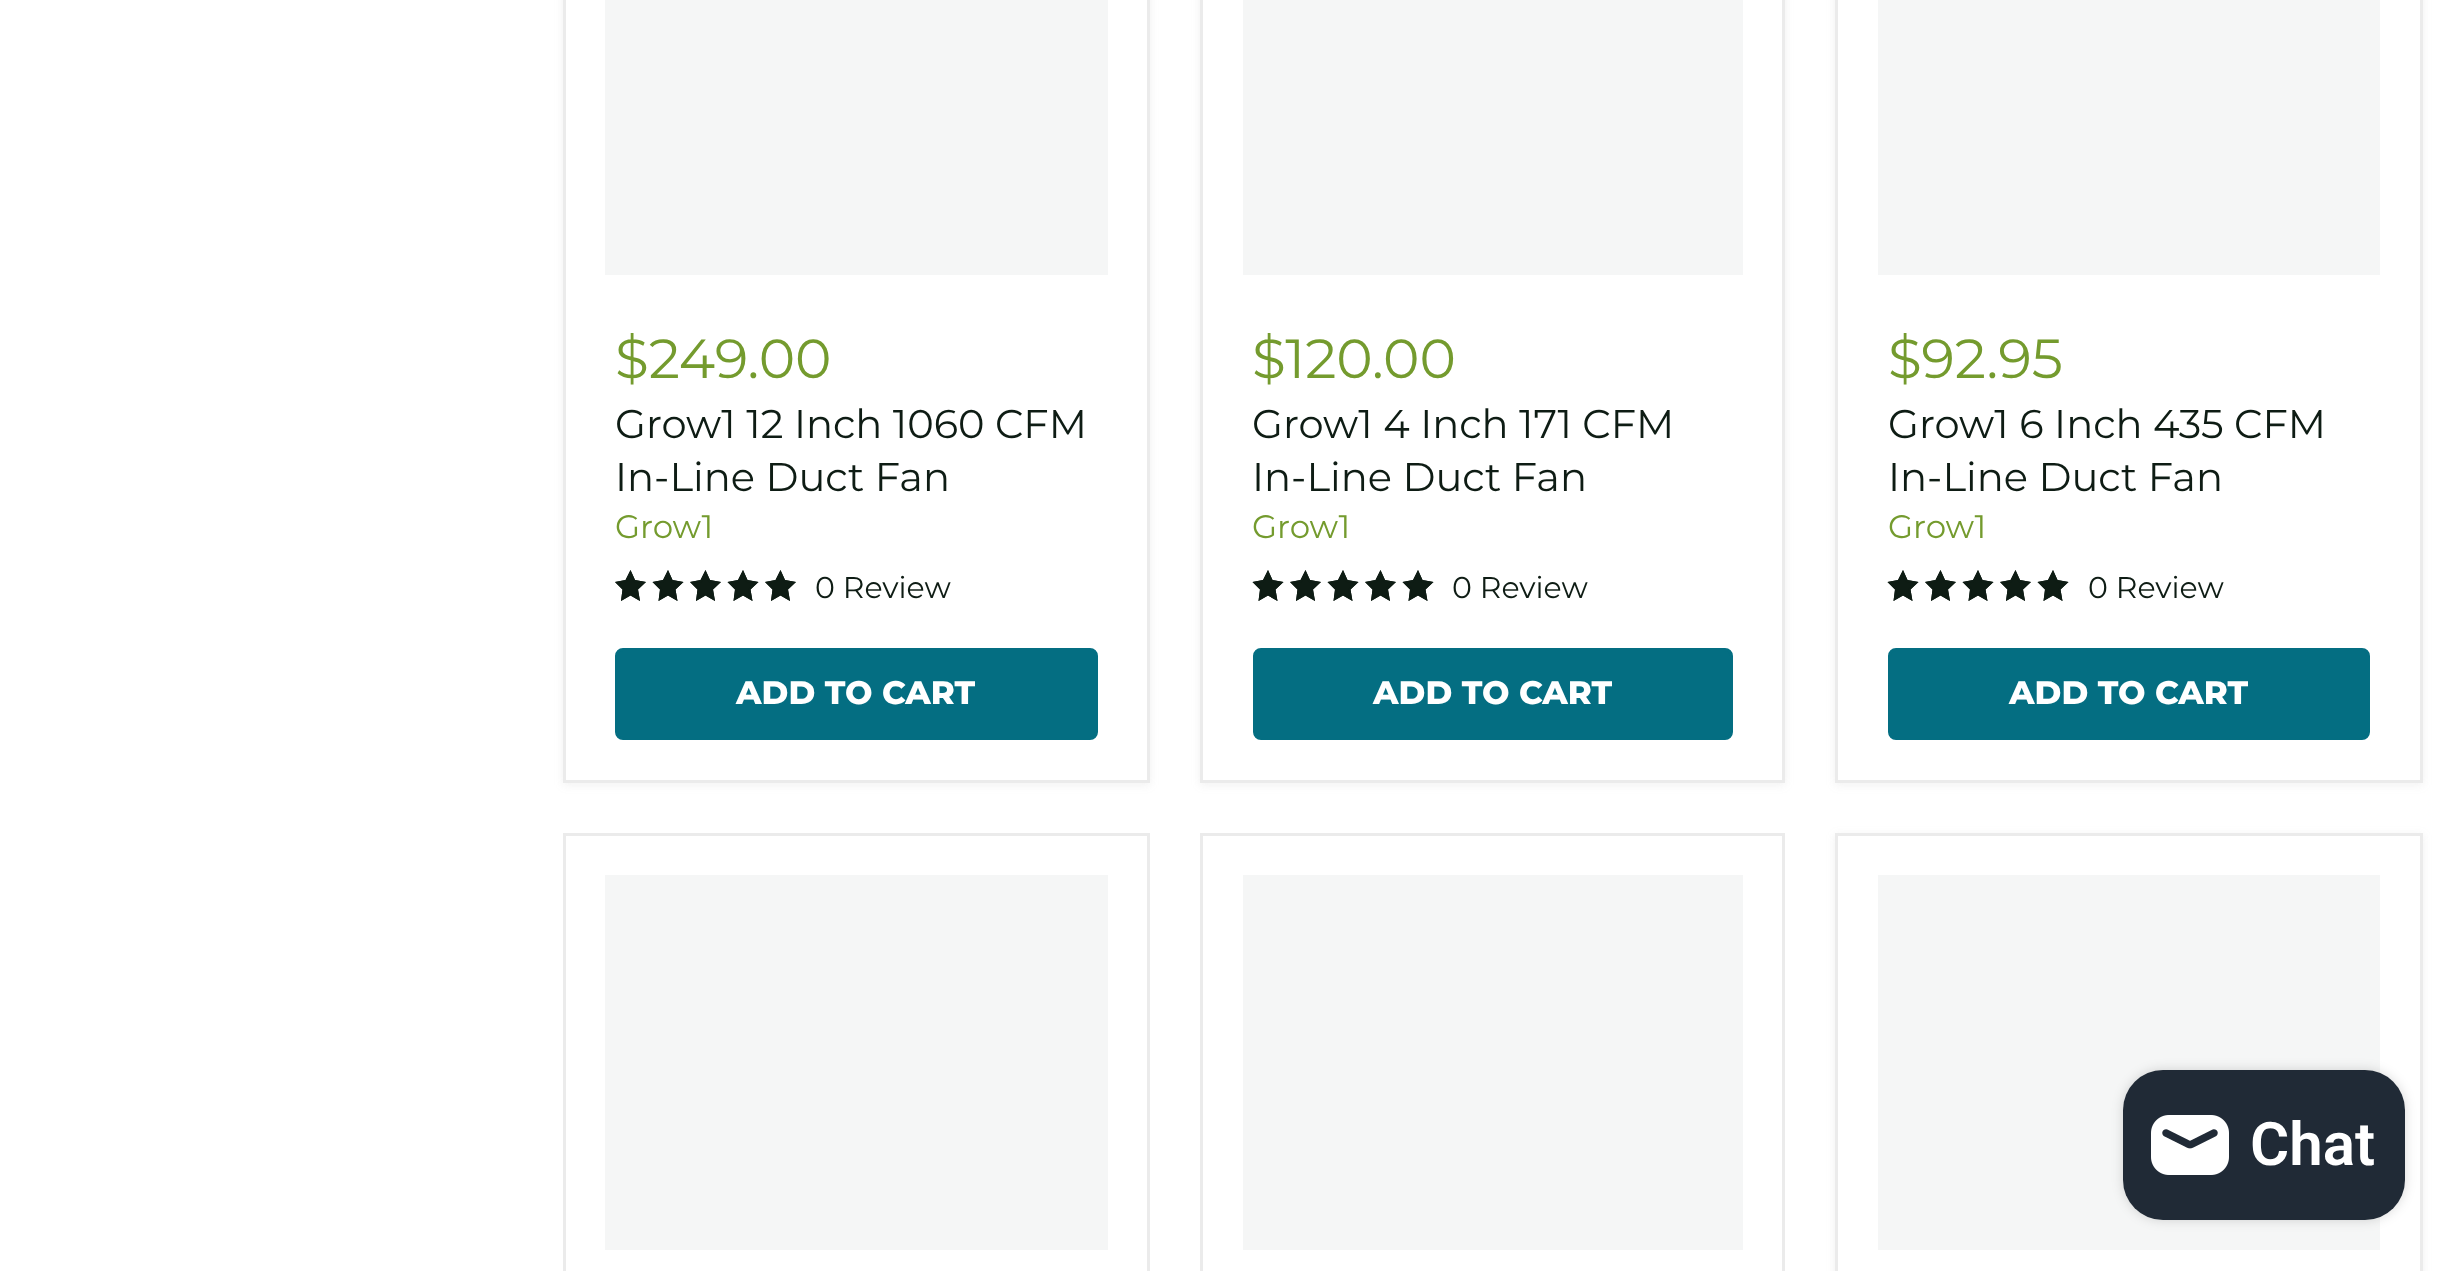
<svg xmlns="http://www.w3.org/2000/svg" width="2459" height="1271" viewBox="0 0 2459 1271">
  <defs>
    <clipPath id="clip1"><path d="M630.5 570L635 580L646 582L638 589.5L640 601L630.5 595.5L621 601L622.5 589.5L615 582L625.5 580Z"/></clipPath>
    <clipPath id="clip2"><path d="M668 570L672.5 580L683.5 582L675.5 589.5L677.5 601L668 595.5L658.5 601L660 589.5L652.5 582L663 580Z"/></clipPath>
    <clipPath id="clip3"><path d="M705.5 570L710 580L721 582L713 589.5L715 601L705.5 595.5L696 601L697.5 589.5L690 582L700.5 580Z"/></clipPath>
    <clipPath id="clip4"><path d="M743 570L747.5 580L758.5 582L750.5 589.5L752.5 601L743 595.5L733.5 601L735 589.5L727.5 582L738 580Z"/></clipPath>
    <clipPath id="clip5"><path d="M780.5 570L785 580L796 582L788 589.5L790 601L780.5 595.5L771 601L772.5 589.5L765 582L775.5 580Z"/></clipPath>
    <clipPath id="clip6"><path d="M1268 570L1272.5 580L1283.5 582L1275.5 589.5L1277.5 601L1268 595.5L1258.5 601L1260 589.5L1252.5 582L1263 580Z"/></clipPath>
    <clipPath id="clip7"><path d="M1305.5 570L1310 580L1321 582L1313 589.5L1315 601L1305.5 595.5L1296 601L1297.5 589.5L1290 582L1300.5 580Z"/></clipPath>
    <clipPath id="clip8"><path d="M1343 570L1347.5 580L1358.5 582L1350.5 589.5L1352.5 601L1343 595.5L1333.5 601L1335 589.5L1327.5 582L1338 580Z"/></clipPath>
    <clipPath id="clip9"><path d="M1380.5 570L1385 580L1396 582L1388 589.5L1390 601L1380.5 595.5L1371 601L1372.5 589.5L1365 582L1375.5 580Z"/></clipPath>
    <clipPath id="clip10"><path d="M1418 570L1422.5 580L1433.5 582L1425.5 589.5L1427.5 601L1418 595.5L1408.5 601L1410 589.5L1402.5 582L1413 580Z"/></clipPath>
    <clipPath id="clip11"><path d="M1903 570L1907.5 580L1918.5 582L1910.5 589.5L1912.5 601L1903 595.5L1893.5 601L1895 589.5L1887.5 582L1898 580Z"/></clipPath>
    <clipPath id="clip12"><path d="M1940.5 570L1945 580L1956 582L1948 589.5L1950 601L1940.5 595.5L1931 601L1932.5 589.5L1925 582L1935.5 580Z"/></clipPath>
    <clipPath id="clip13"><path d="M1978 570L1982.5 580L1993.5 582L1985.5 589.5L1987.5 601L1978 595.5L1968.5 601L1970 589.5L1962.5 582L1973 580Z"/></clipPath>
    <clipPath id="clip14"><path d="M2015.5 570L2020 580L2031 582L2023 589.5L2025 601L2015.5 595.5L2006 601L2007.5 589.5L2000 582L2010.5 580Z"/></clipPath>
    <clipPath id="clip15"><path d="M2053 570L2057.5 580L2068.5 582L2060.5 589.5L2062.5 601L2053 595.5L2043.5 601L2045 589.5L2037.5 582L2048 580Z"/></clipPath>
  </defs>
  <rect width="100%" height="100%" fill="#fff"/>
  <path d="M563 -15h587v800H563z" fill="#8080801c" filter="blur(5px)"/>
  <path d="M564.5 -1.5h584v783H564.5z" fill="#fff" stroke="#ebebeb" stroke-width="3"/>
  <path d="M605 0h503v275H605z" fill="#f5f6f6"/>
  <path d="M630.5 570L625.5 580L615 582L622.5 589.5L621 601L630.5 595.5L640 601L638 589.5L646 582L635 580Z" fill="#0e1c14"/>
  <g clip-path="url(#clip1)">
    <path d="M630.5 570L635 580L646 582L638 589.5L640 601L630.5 595.5L621 601L622.5 589.5L615 582L625.5 580Z" fill="none" stroke="#0e1c14" stroke-width="4.4" stroke-linecap="round" stroke-linejoin="round"/>
  </g>
  <path d="M668 570L663 580L652.5 582L660 589.5L658.5 601L668 595.5L677.5 601L675.5 589.5L683.5 582L672.5 580Z" fill="#0e1c14"/>
  <g clip-path="url(#clip2)">
    <path d="M668 570L672.5 580L683.5 582L675.5 589.5L677.5 601L668 595.5L658.5 601L660 589.5L652.5 582L663 580Z" fill="none" stroke="#0e1c14" stroke-width="4.4" stroke-linecap="round" stroke-linejoin="round"/>
  </g>
  <path d="M705.5 570L700.5 580L690 582L697.5 589.5L696 601L705.5 595.5L715 601L713 589.5L721 582L710 580Z" fill="#0e1c14"/>
  <g clip-path="url(#clip3)">
    <path d="M705.5 570L710 580L721 582L713 589.5L715 601L705.5 595.5L696 601L697.5 589.5L690 582L700.5 580Z" fill="none" stroke="#0e1c14" stroke-width="4.4" stroke-linecap="round" stroke-linejoin="round"/>
  </g>
  <path d="M743 570L738 580L727.5 582L735 589.5L733.5 601L743 595.5L752.5 601L750.5 589.5L758.5 582L747.5 580Z" fill="#0e1c14"/>
  <g clip-path="url(#clip4)">
    <path d="M743 570L747.5 580L758.5 582L750.5 589.5L752.5 601L743 595.5L733.5 601L735 589.5L727.5 582L738 580Z" fill="none" stroke="#0e1c14" stroke-width="4.4" stroke-linecap="round" stroke-linejoin="round"/>
  </g>
  <path d="M780.5 570L775.5 580L765 582L772.5 589.5L771 601L780.5 595.5L790 601L788 589.5L796 582L785 580Z" fill="#0e1c14"/>
  <g clip-path="url(#clip5)">
    <path d="M780.5 570L785 580L796 582L788 589.5L790 601L780.5 595.5L771 601L772.5 589.5L765 582L775.5 580Z" fill="none" stroke="#0e1c14" stroke-width="4.4" stroke-linecap="round" stroke-linejoin="round"/>
  </g>
  <rect x="616.5" y="649.5" width="480" height="89" rx="6.5" fill="#046e82" stroke="#046e82" stroke-width="3"/>
  <path d="M1200 -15h585v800H1200z" fill="#8080801c" filter="blur(5px)"/>
  <path d="M1201.5 -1.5h582v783H1201.5z" fill="#fff" stroke="#ebebeb" stroke-width="3"/>
  <path d="M1243 0h500v275H1243z" fill="#f5f6f6"/>
  <path d="M1268 570L1263 580L1252.5 582L1260 589.5L1258.5 601L1268 595.5L1277.5 601L1275.5 589.5L1283.5 582L1272.5 580Z" fill="#0e1c14"/>
  <g clip-path="url(#clip6)">
    <path d="M1268 570L1272.5 580L1283.5 582L1275.5 589.5L1277.5 601L1268 595.5L1258.5 601L1260 589.5L1252.5 582L1263 580Z" fill="none" stroke="#0e1c14" stroke-width="4.4" stroke-linecap="round" stroke-linejoin="round"/>
  </g>
  <path d="M1305.5 570L1300.5 580L1290 582L1297.5 589.5L1296 601L1305.5 595.5L1315 601L1313 589.5L1321 582L1310 580Z" fill="#0e1c14"/>
  <g clip-path="url(#clip7)">
    <path d="M1305.5 570L1310 580L1321 582L1313 589.5L1315 601L1305.5 595.5L1296 601L1297.5 589.5L1290 582L1300.5 580Z" fill="none" stroke="#0e1c14" stroke-width="4.4" stroke-linecap="round" stroke-linejoin="round"/>
  </g>
  <path d="M1343 570L1338 580L1327.5 582L1335 589.5L1333.5 601L1343 595.5L1352.5 601L1350.5 589.5L1358.5 582L1347.5 580Z" fill="#0e1c14"/>
  <g clip-path="url(#clip8)">
    <path d="M1343 570L1347.5 580L1358.5 582L1350.5 589.5L1352.5 601L1343 595.5L1333.5 601L1335 589.5L1327.5 582L1338 580Z" fill="none" stroke="#0e1c14" stroke-width="4.4" stroke-linecap="round" stroke-linejoin="round"/>
  </g>
  <path d="M1380.5 570L1375.5 580L1365 582L1372.5 589.5L1371 601L1380.5 595.5L1390 601L1388 589.5L1396 582L1385 580Z" fill="#0e1c14"/>
  <g clip-path="url(#clip9)">
    <path d="M1380.5 570L1385 580L1396 582L1388 589.5L1390 601L1380.5 595.5L1371 601L1372.5 589.5L1365 582L1375.5 580Z" fill="none" stroke="#0e1c14" stroke-width="4.4" stroke-linecap="round" stroke-linejoin="round"/>
  </g>
  <path d="M1418 570L1413 580L1402.5 582L1410 589.5L1408.5 601L1418 595.5L1427.5 601L1425.5 589.5L1433.5 582L1422.5 580Z" fill="#0e1c14"/>
  <g clip-path="url(#clip10)">
    <path d="M1418 570L1422.5 580L1433.5 582L1425.5 589.5L1427.5 601L1418 595.5L1408.5 601L1410 589.5L1402.5 582L1413 580Z" fill="none" stroke="#0e1c14" stroke-width="4.4" stroke-linecap="round" stroke-linejoin="round"/>
  </g>
  <rect x="1254.5" y="649.5" width="477" height="89" rx="6.5" fill="#046e82" stroke="#046e82" stroke-width="3"/>
  <path d="M1835 -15h588v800H1835z" fill="#8080801c" filter="blur(5px)"/>
  <path d="M1836.5 -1.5h585v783H1836.5z" fill="#fff" stroke="#ebebeb" stroke-width="3"/>
  <path d="M1878 0h502v275H1878z" fill="#f5f6f6"/>
  <path d="M1903 570L1898 580L1887.5 582L1895 589.5L1893.5 601L1903 595.5L1912.5 601L1910.5 589.5L1918.5 582L1907.5 580Z" fill="#0e1c14"/>
  <g clip-path="url(#clip11)">
    <path d="M1903 570L1907.5 580L1918.5 582L1910.5 589.5L1912.5 601L1903 595.5L1893.5 601L1895 589.5L1887.5 582L1898 580Z" fill="none" stroke="#0e1c14" stroke-width="4.4" stroke-linecap="round" stroke-linejoin="round"/>
  </g>
  <path d="M1940.5 570L1935.5 580L1925 582L1932.5 589.5L1931 601L1940.5 595.5L1950 601L1948 589.5L1956 582L1945 580Z" fill="#0e1c14"/>
  <g clip-path="url(#clip12)">
    <path d="M1940.5 570L1945 580L1956 582L1948 589.5L1950 601L1940.5 595.5L1931 601L1932.5 589.5L1925 582L1935.5 580Z" fill="none" stroke="#0e1c14" stroke-width="4.4" stroke-linecap="round" stroke-linejoin="round"/>
  </g>
  <path d="M1978 570L1973 580L1962.5 582L1970 589.5L1968.5 601L1978 595.5L1987.5 601L1985.5 589.5L1993.5 582L1982.5 580Z" fill="#0e1c14"/>
  <g clip-path="url(#clip13)">
    <path d="M1978 570L1982.5 580L1993.5 582L1985.5 589.5L1987.5 601L1978 595.5L1968.5 601L1970 589.5L1962.5 582L1973 580Z" fill="none" stroke="#0e1c14" stroke-width="4.4" stroke-linecap="round" stroke-linejoin="round"/>
  </g>
  <path d="M2015.5 570L2010.5 580L2000 582L2007.5 589.5L2006 601L2015.5 595.5L2025 601L2023 589.5L2031 582L2020 580Z" fill="#0e1c14"/>
  <g clip-path="url(#clip14)">
    <path d="M2015.5 570L2020 580L2031 582L2023 589.5L2025 601L2015.5 595.5L2006 601L2007.5 589.5L2000 582L2010.5 580Z" fill="none" stroke="#0e1c14" stroke-width="4.4" stroke-linecap="round" stroke-linejoin="round"/>
  </g>
  <path d="M2053 570L2048 580L2037.5 582L2045 589.5L2043.5 601L2053 595.5L2062.5 601L2060.5 589.5L2068.5 582L2057.5 580Z" fill="#0e1c14"/>
  <g clip-path="url(#clip15)">
    <path d="M2053 570L2057.5 580L2068.5 582L2060.5 589.5L2062.5 601L2053 595.5L2043.5 601L2045 589.5L2037.5 582L2048 580Z" fill="none" stroke="#0e1c14" stroke-width="4.4" stroke-linecap="round" stroke-linejoin="round"/>
  </g>
  <rect x="1889.5" y="649.5" width="479" height="89" rx="6.5" fill="#046e82" stroke="#046e82" stroke-width="3"/>
  <path d="M564.5 834.5h584v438H564.5z" fill="none" stroke="#ebebeb" stroke-width="3"/>
  <path d="M605 875h503v375H605z" fill="#f5f6f6"/>
  <path d="M1201.5 834.5h582v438H1201.5z" fill="none" stroke="#ebebeb" stroke-width="3"/>
  <path d="M1243 875h500v375H1243z" fill="#f5f6f6"/>
  <path d="M1835 835h588v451H1835z" fill="#8080801c" filter="blur(5px)"/>
  <path d="M1836.5 834.5h585v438H1836.5z" fill="#fff" stroke="#ebebeb" stroke-width="3"/>
  <path d="M1878 875h502v375H1878z" fill="#f5f6f6"/>
  <rect x="2123" y="1070" width="282" height="150" rx="40" fill="#00000026" filter="blur(6px)"/>
  <rect x="2123" y="1070" width="282" height="150" rx="40" fill="#202a36"/>
  <image x="2151" y="1115" width="78" height="60" href="img/1.png"/>
  <text x="615" y="378" font-family="Montserrat" font-size="55" font-weight="100" fill="#749b2e">$249.00</text>
  <g font-family="Montserrat" font-size="40" font-weight="100" fill="#0e1c14">
    <text x="615" y="438">Grow1 12 Inch 1060 CFM</text>
    <text x="615" y="491">In-Line Duct Fan</text>
  </g>
  <text x="615" y="538" font-family="Montserrat" font-size="32.5" font-weight="100" fill="#749b2e">Grow1</text>
  <text x="815" y="598" font-family="Montserrat" font-size="30" font-weight="100" fill="#0e1c14">0 Review</text>
  <text x="736" y="704" font-family="Montserrat" font-size="32.5" font-weight="800" fill="#fff">ADD TO CART</text>
  <text x="1252" y="378" font-family="Montserrat" font-size="55" font-weight="100" fill="#749b2e">$120.00</text>
  <g font-family="Montserrat" font-size="40" font-weight="100" fill="#0e1c14">
    <text x="1252" y="438">Grow1 4 Inch 171 CFM</text>
    <text x="1252" y="491">In-Line Duct Fan</text>
  </g>
  <text x="1252" y="538" font-family="Montserrat" font-size="32.5" font-weight="100" fill="#749b2e">Grow1</text>
  <text x="1452" y="598" font-family="Montserrat" font-size="30" font-weight="100" fill="#0e1c14">0 Review</text>
  <text x="1373" y="704" font-family="Montserrat" font-size="32.5" font-weight="800" fill="#fff">ADD TO CART</text>
  <text x="1888" y="378" font-family="Montserrat" font-size="55" font-weight="100" fill="#749b2e">$92.95</text>
  <g font-family="Montserrat" font-size="40" font-weight="100" fill="#0e1c14">
    <text x="1888" y="438">Grow1 6 Inch 435 CFM</text>
    <text x="1888" y="491">In-Line Duct Fan</text>
  </g>
  <text x="1888" y="538" font-family="Montserrat" font-size="32.5" font-weight="100" fill="#749b2e">Grow1</text>
  <text x="2088" y="598" font-family="Montserrat" font-size="30" font-weight="100" fill="#0e1c14">0 Review</text>
  <text x="2009" y="704" font-family="Montserrat" font-size="32.5" font-weight="800" fill="#fff">ADD TO CART</text>
  <text x="2250" y="1165" font-family="Roboto" font-size="60" font-weight="600" fill="#fff">Chat</text>
</svg>
